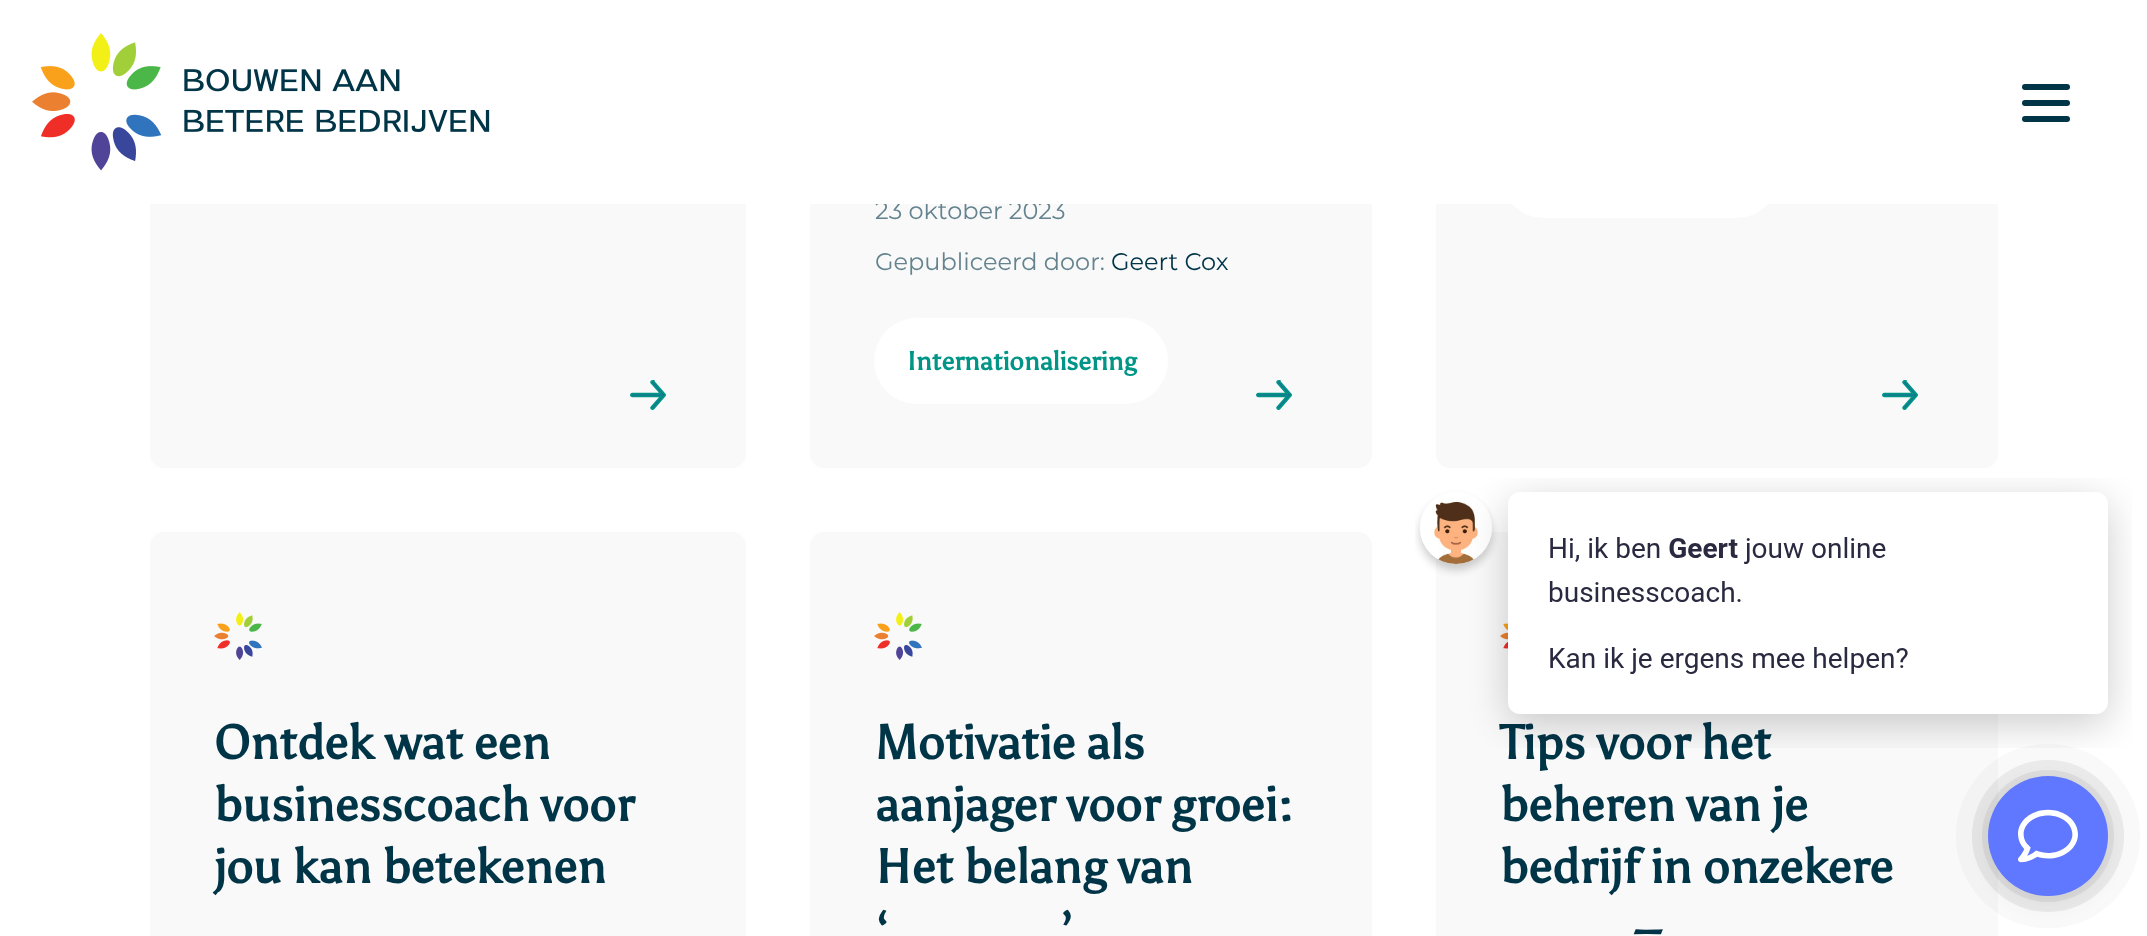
<svg xmlns="http://www.w3.org/2000/svg" width="2147" height="936" viewBox="0 0 2147 936">
  <rect width="100%" height="100%" fill="#fff"/>
  <rect x="2022" y="84" width="48" height="6" rx="3" fill="#003447"/>
  <rect x="2022" y="100" width="48" height="6" rx="3" fill="#003447"/>
  <rect x="2022" y="116" width="48" height="6" rx="3" fill="#003447"/>
  <rect x="150" y="-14" width="596" height="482" rx="14" fill="#f9f9f9"/>
  <image x="630" y="380" width="36" height="30" href="img/2.png"/>
  <rect x="810" y="-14" width="562" height="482" rx="14" fill="#f9f9f9"/>
  <rect x="874" y="318" width="294" height="86" rx="43" fill="#fff"/>
  <image x="1256" y="380" width="36" height="30" href="img/3.png"/>
  <rect x="1436" y="-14" width="562" height="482" rx="14" fill="#f9f9f9"/>
  <rect x="1500" y="130" width="280" height="88" rx="44" fill="#fff"/>
  <image x="1882" y="380" width="36" height="30" href="img/2.png"/>
  <rect x="150" y="532" width="596" height="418" rx="14" fill="#f9f9f9"/>
  <image x="214" y="612" width="48" height="48" href="img/4.png"/>
  <rect x="810" y="532" width="562" height="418" rx="14" fill="#f9f9f9"/>
  <image x="874" y="612" width="48" height="48" href="img/4.png"/>
  <path d="M1436 532h562v404H1436z" fill="#f9f9f9"/>
  <image x="1500" y="623" width="8" height="26" href="img/5.png"/>
  <image x="1956" y="744" width="184" height="184" href="img/7.png"/>
  <text x="875" y="219" font-family="Montserrat" font-size="24" fill="#64838e">23 oktober 2023</text>
  <path d="M150 0h1848v204H150z" fill="#fff"/>
  <image x="32" y="33" width="458" height="138" href="img/1.png"/>
  <text x="875" y="270" font-family="Montserrat" font-size="24" fill="#64838e">Gepubliceerd door:</text>
  <text x="1111" y="270" font-family="Montserrat" font-size="24" fill="#003447">Geert Cox</text>
  <text x="907" y="370" font-family="Asul" font-size="26" font-weight="bold" fill="#009587">Internationalisering</text>
  <g font-family="Asul" font-size="48" font-weight="bold" fill="#003447">
    <text x="214" y="759">Ontdek wat een</text>
    <text x="214" y="821">businesscoach voor</text>
    <text x="214" y="883">jou kan betekenen</text>
    <text x="875" y="759">Motivatie als</text>
    <text x="875" y="821">aanjager voor groei:</text>
    <text x="875" y="883">Het belang van</text>
    <text x="875" y="946">‘</text>
    <text x="1060" y="946">’</text>
    <text x="1500" y="759">Tips voor het</text>
    <text x="1500" y="821">beheren van je</text>
    <text x="1500" y="883">bedrijf in onzekere</text>
    <text x="1634" y="946">–</text>
  </g>
  <image x="1415" y="478" width="717" height="270" href="img/6.png"/>
</svg>
